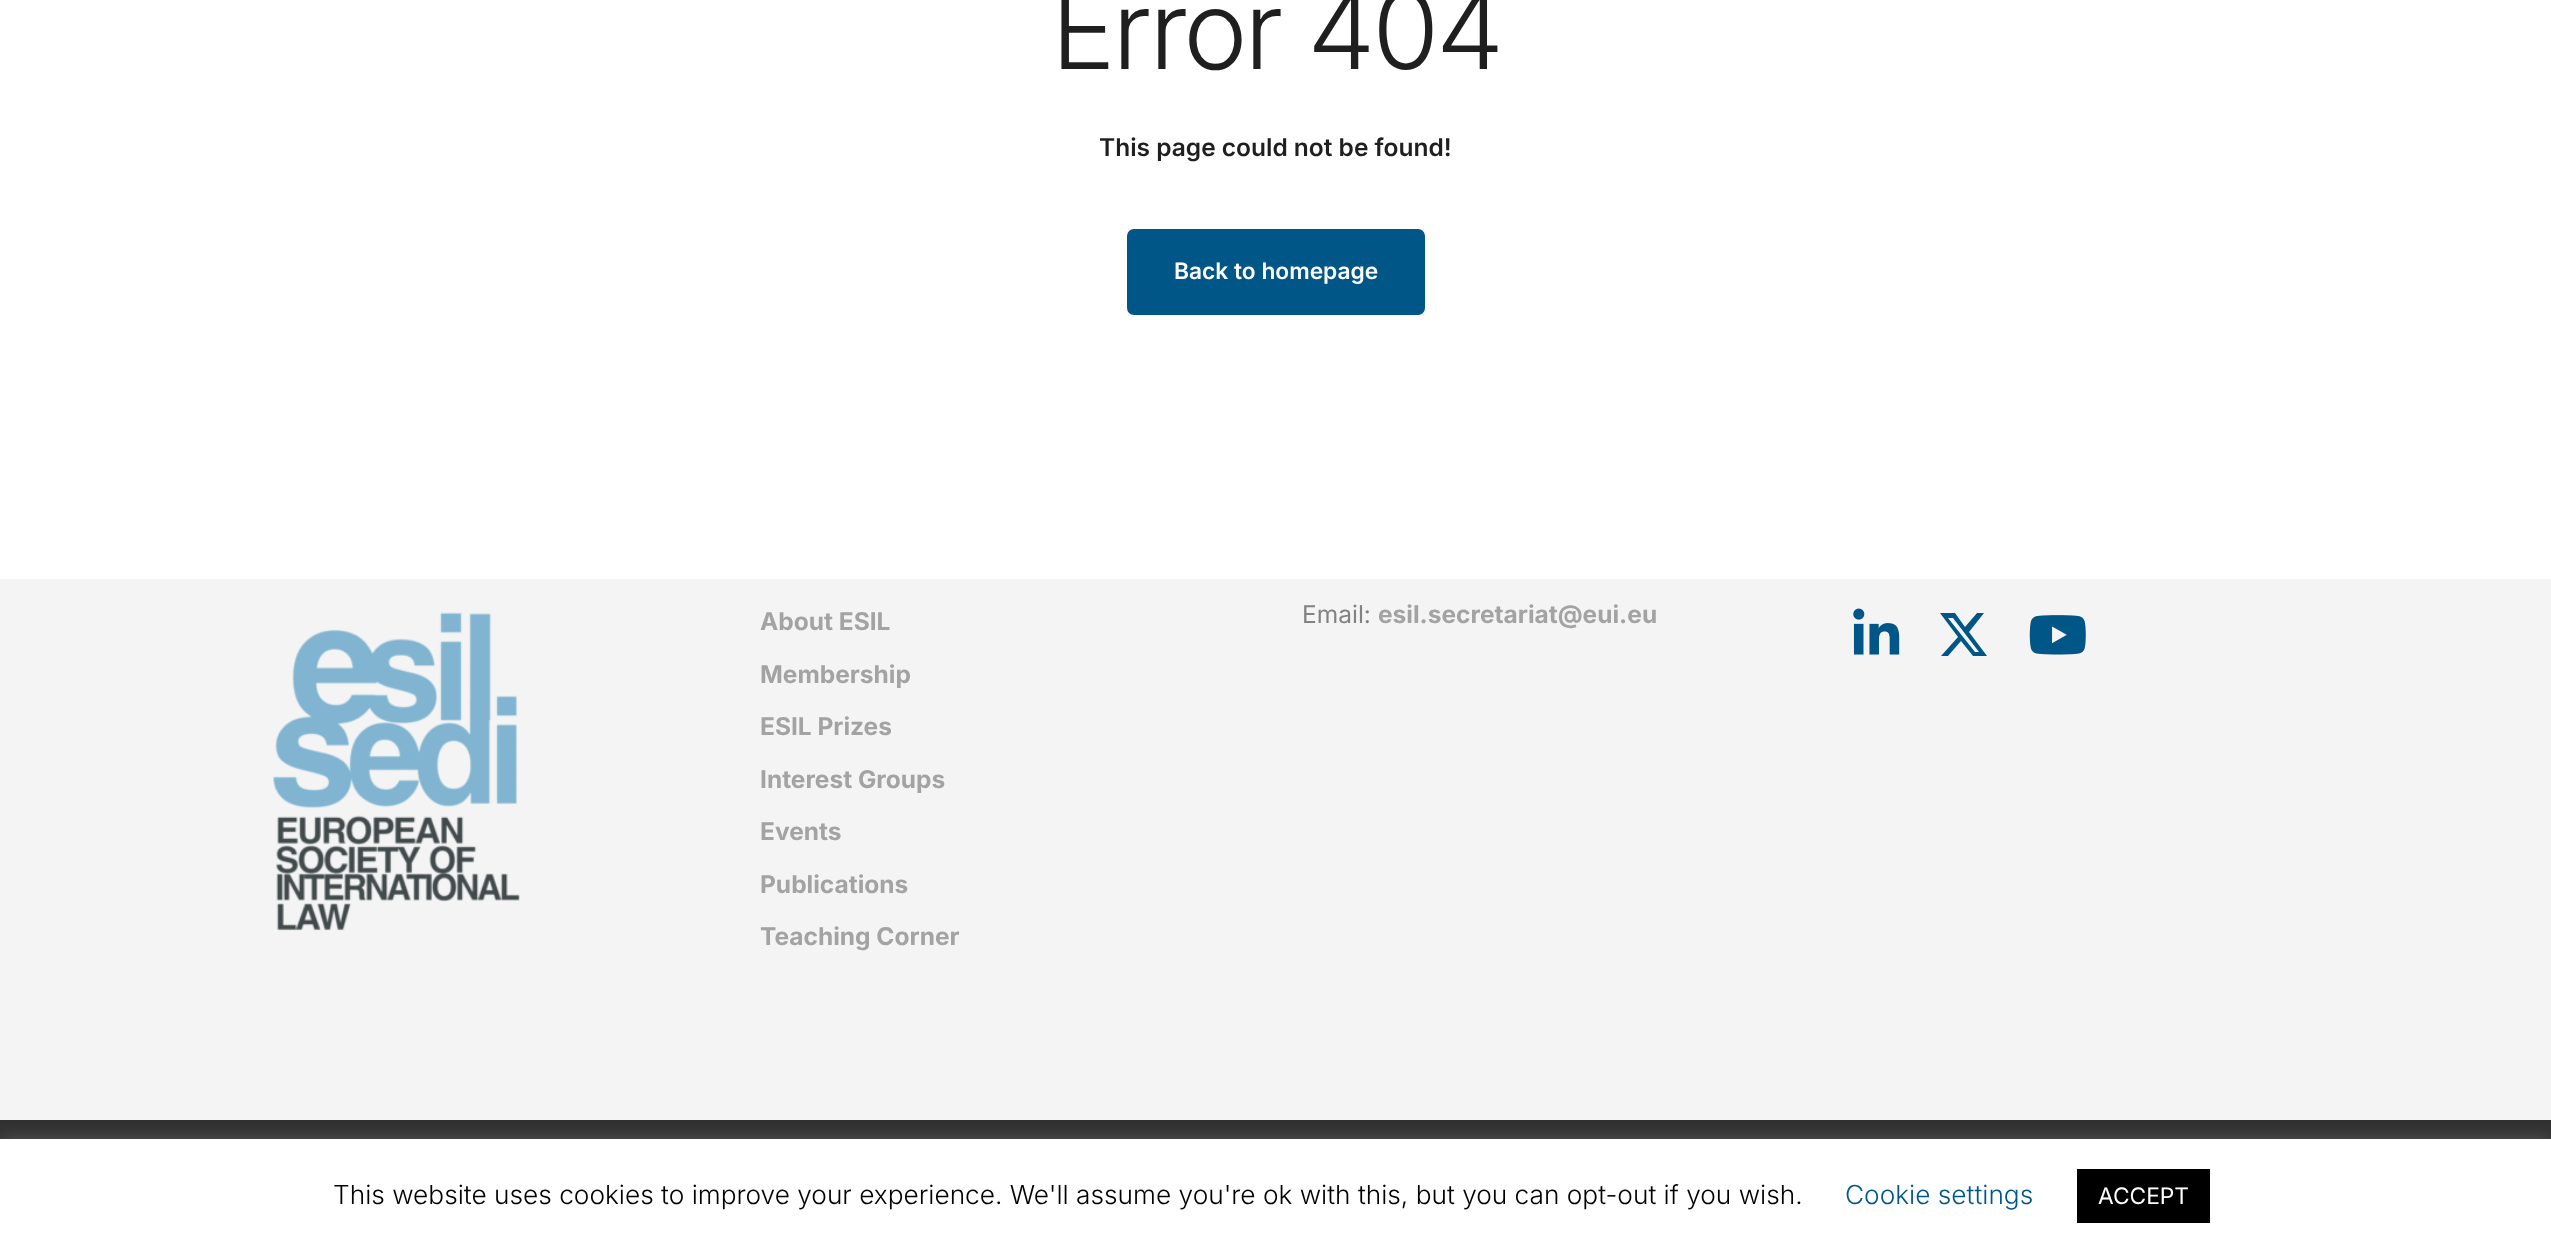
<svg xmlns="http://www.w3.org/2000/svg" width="2551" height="1252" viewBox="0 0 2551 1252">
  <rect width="100%" height="100%" fill="#f4f4f4"/>
  <path d="M0 0h2551v579H0z" fill="#fff"/>
  <rect x="1129" y="231" width="294" height="82" rx="5" fill="#005787" stroke="#005787" stroke-width="4"/>
  <image x="273" y="612" width="247" height="319" href="img/1.png"/>
  <image x="1853" y="608" width="47" height="47" href="img/2.png"/>
  <path d="M1977 613H1984L1969 632L1987 656H1973L1961 641L1948 656H1941L1958 637L1940 613H1955L1965 627ZM1975 652H1979L1953 618H1948Z" fill="#005787"/>
  <image x="2029" y="615" width="57" height="40" href="img/3.png"/>
  <path d="M0 1120h2551v19H0z" fill="#303030"/>
  <path d="M0 1138h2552v113H0z" fill="#acabab4d" filter="blur(9px)"/>
  <path d="M0 1139h2551v113H0z" fill="#fff"/>
  <path d="M2077 1169h133v54H2077z" fill="#000"/>
  <text x="1051" y="69" font-family="Inter" font-size="108.5" font-weight="300" letter-spacing="-3.25" fill="#1f1f1f">Error 404</text>
  <text x="1099" y="156" font-family="Inter" font-size="24.5" font-weight="600" fill="#1f1f1f">This page could not be found!</text>
  <text x="1174" y="279" font-family="Inter" font-size="22.75" font-weight="600" fill="#fff">Back to homepage</text>
  <g font-family="Inter" font-size="24.5" font-weight="bold" fill="#a3a3a3">
    <text x="760" y="630">About ESIL</text>
    <text x="760" y="683">Membership</text>
    <text x="760" y="735">ESIL Prizes</text>
    <text x="760" y="788">Interest Groups</text>
    <text x="760" y="840">Events</text>
    <text x="760" y="893">Publications</text>
    <text x="760" y="945">Teaching Corner</text>
  </g>
  <text x="1302" y="623" font-family="Inter" font-size="24.5" fill="#828282">Email:</text>
  <text x="1378" y="623" font-family="Inter" font-size="24.5" font-weight="bold" fill="#a3a3a3">esil.secretariat@eui.eu</text>
  <text x="333" y="1204" font-family="Inter" font-size="26.25" font-weight="300" fill="#000">This website uses cookies to improve your experience. We'll assume you're ok with this, but you can opt-out if you wish.</text>
  <text x="1845" y="1204" font-family="Inter" font-size="26.25" font-weight="300" fill="#005787">Cookie settings</text>
  <text x="2098" y="1204" font-family="Inter" font-size="22.75" fill="#fff">ACCEPT</text>
</svg>
